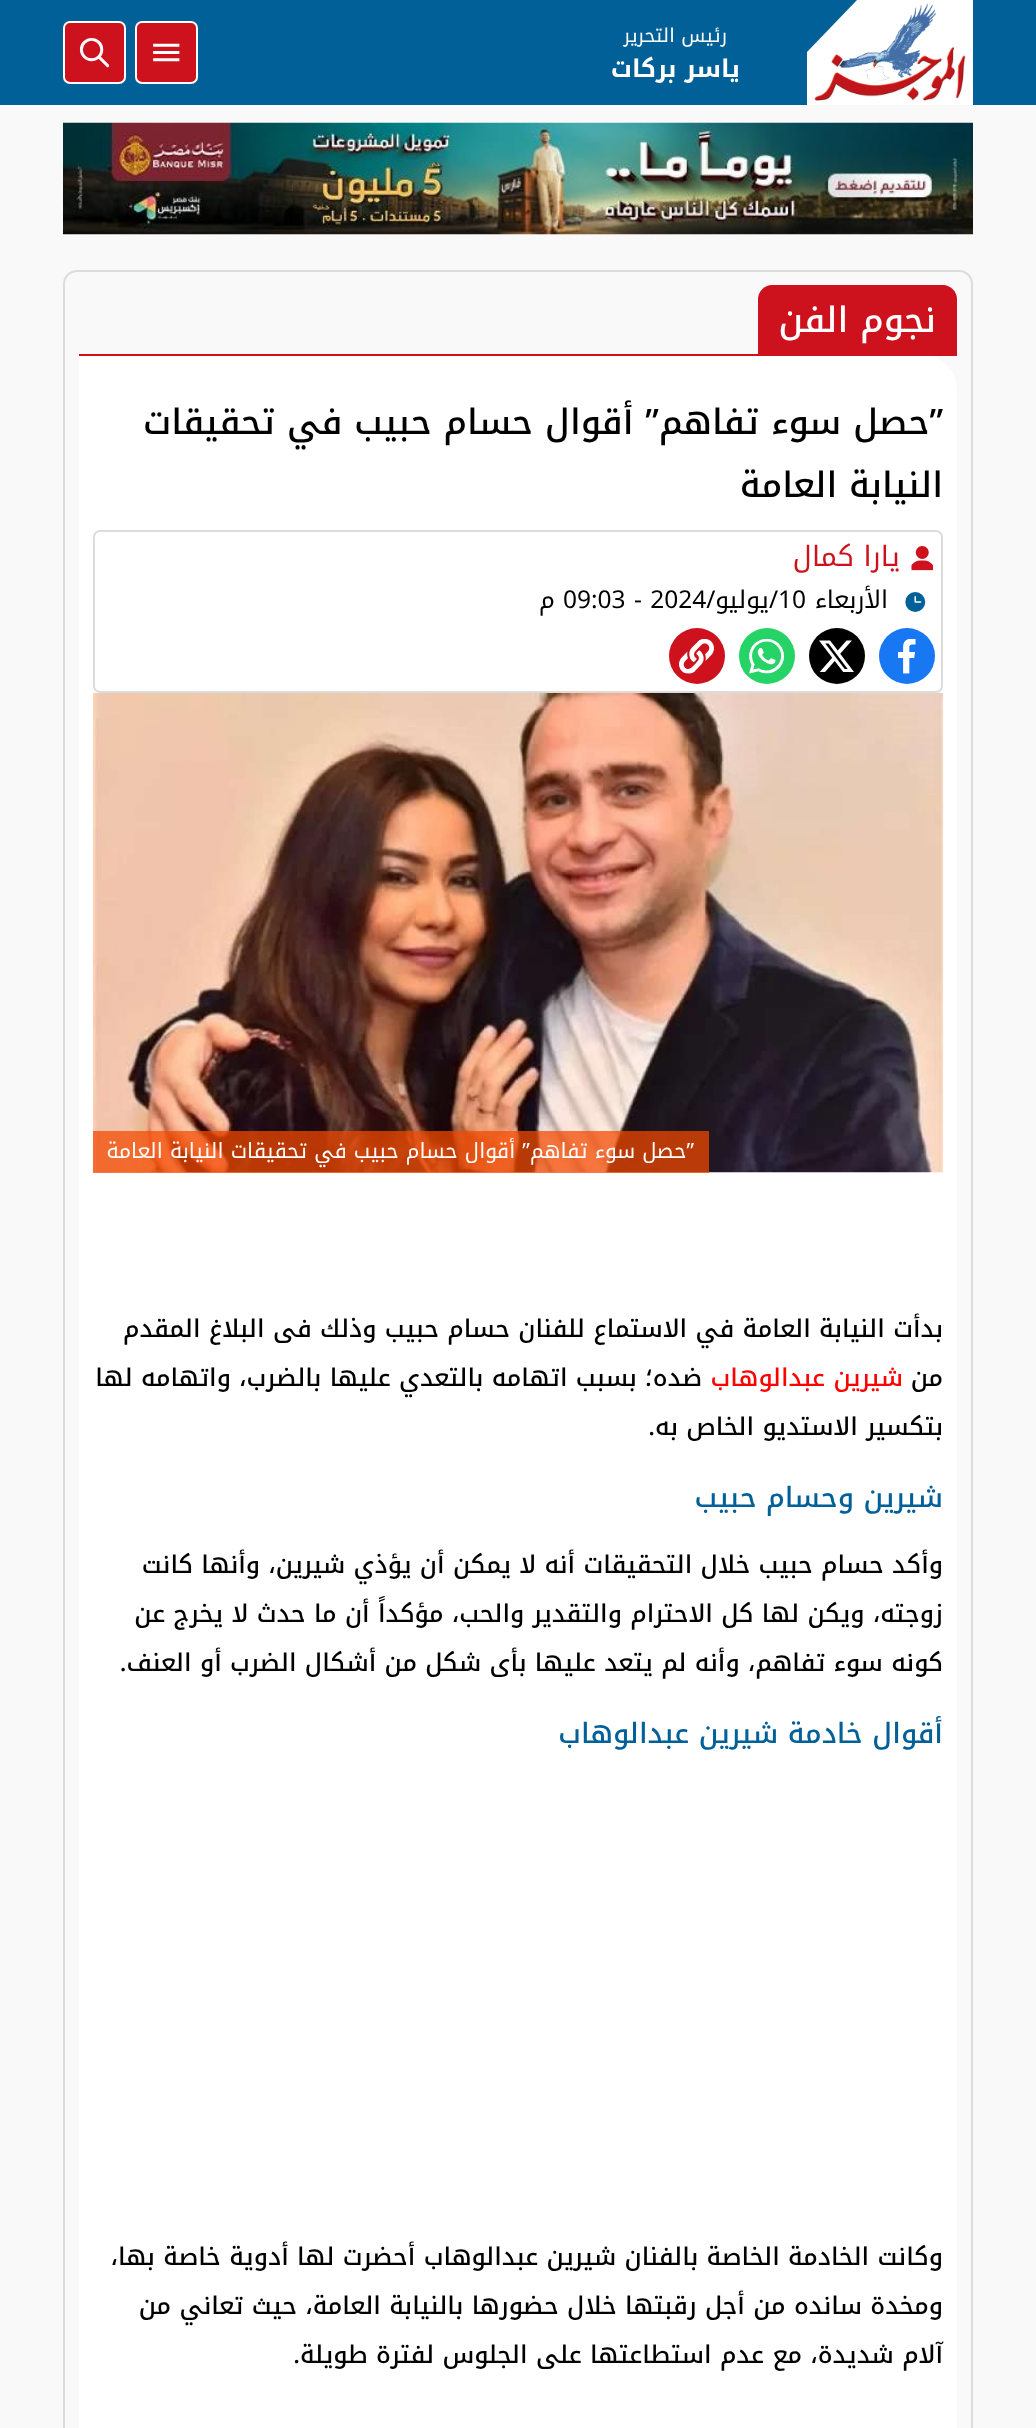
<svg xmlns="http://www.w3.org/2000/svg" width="1036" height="2428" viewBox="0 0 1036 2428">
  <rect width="100%" height="100%" fill="#f9f9f9"/>
  <path d="M0 0h1036v105H0z" fill="#016098"/>
  <path d="M857 0L807 52V105H973V0Z" fill="#fff"/>
  <image x="814" y="3" width="152" height="99" href="img/1.png"/>
  <rect x="136" y="22" width="61" height="61" rx="6" fill="#cd111d" stroke="#fff" stroke-width="2"/>
  <image x="153" y="43" width="27" height="19" href="img/2.png"/>
  <rect x="64" y="22" width="61" height="61" rx="6" fill="#cd111d" stroke="#fff" stroke-width="2"/>
  <image x="79" y="38" width="31" height="30" href="img/3.png"/>
  <image x="63" y="122" width="910" height="113" href="img/4.png"/>
  <rect x="64" y="271" width="908" height="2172" rx="13" fill="none" stroke="#dcdcdc" stroke-width="2"/>
  <path d="M79 355H922C941.5 355 957 370.5 957 390V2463H79Z" fill="#fff"/>
  <path d="M79 354h878v2H79z" fill="#cd111d"/>
  <path d="M772 285H943C950.5 285 957 291.5 957 299V354H758V299C758 291.5 764.5 285 772 285Z" fill="#cd111d"/>
  <rect x="94" y="531" width="848" height="161" rx="6" fill="none" stroke="#dcdcdc" stroke-width="2"/>
  <image x="911" y="546" width="22" height="25" href="img/5.png"/>
  <image x="905" y="592" width="21" height="20" href="img/6.png"/>
  <circle cx="907" cy="656" r="28" fill="#1877f2"/>
  <image x="898" y="639" width="18" height="35" href="img/7.png"/>
  <circle cx="837" cy="656" r="28" fill="#000"/>
  <image x="819" y="640" width="35" height="32" href="img/8.png"/>
  <circle cx="767" cy="656" r="28" fill="#25d366"/>
  <image x="749" y="639" width="35" height="35" href="img/9.png"/>
  <circle cx="697" cy="656" r="28" fill="#cd111d"/>
  <image x="679" y="639" width="35" height="35" href="img/10.png"/>
  <image x="92" y="693" width="852" height="480" href="img/11.png"/>
  <path d="M93 1131h616v42H93z" fill="#f24800ba"/>
  <text x="727" y="42" font-family="Noto Kufi Arabic" font-size="19.25" direction="rtl" fill="#fff">رئيس التحرير</text>
  <text x="740" y="77" font-family="Noto Kufi Arabic" font-size="24.5" font-weight="bold" direction="rtl" fill="#fff">ياسر بركات</text>
  <text x="936" y="332" font-family="Noto Kufi Arabic" font-size="35" font-weight="500" direction="rtl" fill="#fff">نجوم الفن</text>
  <g font-family="Noto Kufi Arabic" font-size="35" font-weight="500" direction="rtl" fill="#000">
    <text x="943" y="434">”حصل سوء تفاهم” أقوال حسام حبيب في تحقيقات</text>
    <text x="943" y="497">النيابة العامة</text>
  </g>
  <text x="900" y="566" font-family="Noto Kufi Arabic" font-size="28" direction="rtl" fill="#cd111d">يارا كمال</text>
  <text x="888" y="608" font-family="Noto Kufi Arabic" font-size="24.5" direction="rtl" fill="#000">الأربعاء</text>
  <text x="778" y="608" font-family="Noto Kufi Arabic" font-size="24.5" fill="#000">10</text>
  <text x="778" y="608" font-family="Noto Kufi Arabic" font-size="24.5" direction="rtl" fill="#000">/يوليو/</text>
  <text x="563" y="608" font-family="Noto Kufi Arabic" font-size="24.5" fill="#000">09:03 - 2024</text>
  <text x="555" y="608" font-family="Noto Kufi Arabic" font-size="24.5" direction="rtl" fill="#000">م</text>
  <text x="694" y="1158" font-family="Noto Kufi Arabic" font-size="21" direction="rtl" fill="#fff">”حصل سوء تفاهم” أقوال حسام حبيب في تحقيقات النيابة العامة</text>
  <g font-family="Noto Kufi Arabic" font-size="24.5" font-weight="500" direction="rtl" fill="#000">
    <text x="943" y="1337">بدأت النيابة العامة في الاستماع للفنان حسام حبيب وذلك فى البلاغ المقدم</text>
    <text x="943" y="1386">من</text>
  </g>
  <text x="903" y="1386" font-family="Noto Kufi Arabic" font-size="24.5" font-weight="500" direction="rtl" fill="#f00">شيرين عبدالوهاب</text>
  <g font-family="Noto Kufi Arabic" font-size="24.5" font-weight="500" direction="rtl" fill="#000">
    <text x="702" y="1386">ضده؛ بسبب اتهامه بالتعدي عليها بالضرب، واتهامه لها</text>
    <text x="943" y="1435">بتكسير الاستديو الخاص به.</text>
  </g>
  <text x="943" y="1507" font-family="Noto Kufi Arabic" font-size="28" font-weight="500" direction="rtl" fill="#016098">شيرين وحسام حبيب</text>
  <g font-family="Noto Kufi Arabic" font-size="24.5" font-weight="500" direction="rtl" fill="#000">
    <text x="943" y="1573">وأكد حسام حبيب خلال التحقيقات أنه لا يمكن أن يؤذي شيرين، وأنها كانت</text>
    <text x="943" y="1622">زوجته، ويكن لها كل الاحترام والتقدير والحب، مؤكداً أن ما حدث لا يخرج عن</text>
    <text x="943" y="1671">كونه سوء تفاهم، وأنه لم يتعد عليها بأى شكل من أشكال الضرب أو العنف.</text>
  </g>
  <text x="943" y="1743" font-family="Noto Kufi Arabic" font-size="28" font-weight="500" direction="rtl" fill="#016098">أقوال خادمة شيرين عبدالوهاب</text>
  <g font-family="Noto Kufi Arabic" font-size="24.5" font-weight="500" direction="rtl" fill="#000">
    <text x="943" y="2265">وكانت الخادمة الخاصة بالفنان شيرين عبدالوهاب أحضرت لها أدوية خاصة بها،</text>
    <text x="943" y="2314">ومخدة سانده من أجل رقبتها خلال حضورها بالنيابة العامة، حيث تعاني من</text>
    <text x="943" y="2363">آلام شديدة، مع عدم استطاعتها على الجلوس لفترة طويلة.</text>
  </g>
</svg>
